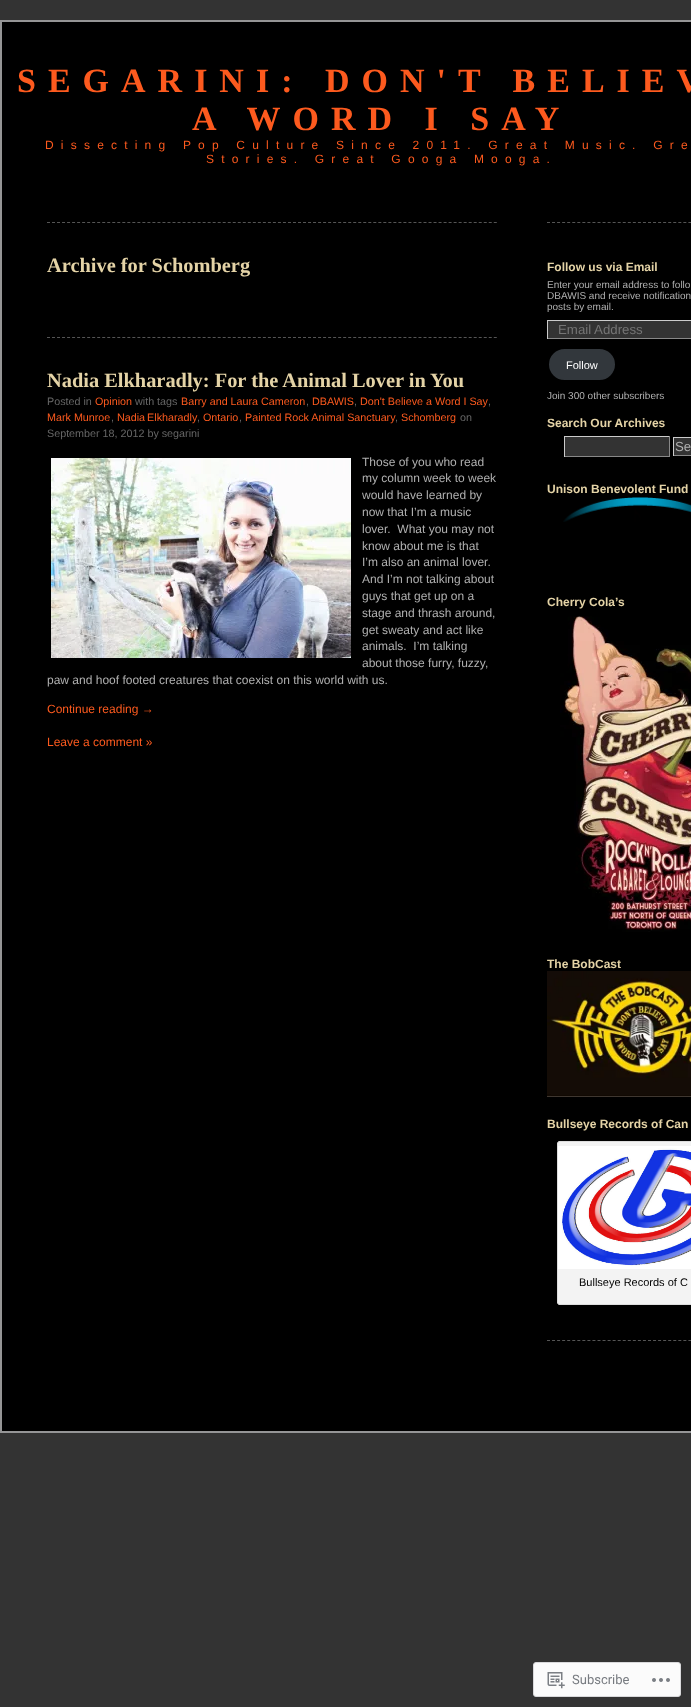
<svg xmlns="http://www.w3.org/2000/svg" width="691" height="1707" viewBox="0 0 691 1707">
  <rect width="100%" height="100%" fill="#333"/>
  <path d="M1 21h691v1411H1z" fill="#000" stroke="#959596" stroke-width="2"/>
  <path d="M47 222.5H497" fill="none" stroke="#555" stroke-dasharray="3 2.02"/>
  <path d="M47 337.5H497" fill="none" stroke="#555" stroke-dasharray="3 2.02"/>
  <image x="51" y="458" width="300" height="200" href="img/1.png"/>
  <path d="M547 222.5H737" fill="none" stroke="#555" stroke-dasharray="3 2.05"/>
  <path d="M547 1340.5H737" fill="none" stroke="#555" stroke-dasharray="3 2.05"/>
  <path d="M548 321h143v17H548z" fill="#333"/>
  <path d="M547 320h144v1H547z" fill="#ccc"/>
  <path d="M547 338h144v1H547z" fill="#888"/>
  <path d="M547 320h1v19H547z" fill="#ccc"/>
  <rect x="548" y="348" width="68" height="33" rx="16.5" fill="#32373c" stroke="#000" stroke-width="2"/>
  <path d="M565 437h104v19H565z" fill="#333"/>
  <path d="M564 436h106v1H564z" fill="#ccc"/>
  <path d="M669 436h1v21H669z" fill="#888"/>
  <path d="M564 456h106v1H564z" fill="#888"/>
  <path d="M564 436h1v21H564z" fill="#ccc"/>
  <path d="M674 438h17v17H674z" fill="#333"/>
  <path d="M673 437h18v1H673z" fill="#ccc"/>
  <path d="M673 455h18v1H673z" fill="#888"/>
  <path d="M673 437h1v19H673z" fill="#ccc"/>
  <image x="563" y="497" width="128" height="25" href="img/2.png"/>
  <image x="560" y="616" width="131" height="316" href="img/3.png"/>
  <image x="547" y="971" width="144" height="126" href="img/4.png"/>
  <path d="M560 1141H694V1305H560C558.5 1305 557 1303.5 557 1302V1144C557 1142.5 558.5 1141 560 1141Z" fill="#f3f3f3"/>
  <rect x="557.5" y="1141.5" width="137" height="163" rx="2.5" fill="none" stroke="#ddd"/>
  <image x="558" y="1146" width="133" height="123" href="img/5.png"/>
  <rect x="533.5" y="1662.5" width="147" height="34" rx="2.5" fill="#fbfbfb" stroke="#d9d9db"/>
  <image x="547" y="1672" width="18" height="17" href="img/6.png"/>
  <image x="652" y="1678" width="18" height="4" href="img/7.png"/>
  <g font-family="Liberation Serif" font-size="34" font-weight="bold" letter-spacing="12" fill="#fd5a1e">
    <text x="17" y="92">SEGARINI: DON'T BELIEV</text>
    <text x="192" y="130">A WORD I SAY</text>
  </g>
  <g font-family="Liberation Sans" font-size="12" letter-spacing="7.2" fill="#fd5a1e">
    <text x="45" y="149">Dissecting Pop Culture Since 2011. Great Music. Gre</text>
    <text x="206" y="163">Stories. Great Googa Mooga.</text>
  </g>
  <g font-family="Liberation Serif" font-size="20.4" font-weight="bold" fill="#e4d3a6">
    <text x="47" y="272">Archive for Schomberg</text>
    <text x="47" y="387">Nadia Elkharadly: For the Animal Lover in You</text>
  </g>
  <text x="47" y="405" font-family="Liberation Sans" font-size="10.75" fill="#666">Posted in</text>
  <text x="95" y="405" font-family="Liberation Sans" font-size="10.75" fill="#fd5a1e">Opinion</text>
  <text x="135" y="405" font-family="Liberation Sans" font-size="10.75" fill="#666">with tags</text>
  <text x="181" y="405" font-family="Liberation Sans" font-size="10.75" fill="#fd5a1e">Barry and Laura Cameron</text>
  <text x="306" y="405" font-family="Liberation Sans" font-size="10.75" fill="#666">,</text>
  <text x="312" y="405" font-family="Liberation Sans" font-size="10.75" fill="#fd5a1e">DBAWIS</text>
  <text x="354" y="405" font-family="Liberation Sans" font-size="10.75" fill="#666">,</text>
  <text x="360" y="405" font-family="Liberation Sans" font-size="10.75" fill="#fd5a1e">Don't Believe a Word I Say</text>
  <text x="488" y="405" font-family="Liberation Sans" font-size="10.75" fill="#666">,</text>
  <text x="47" y="421" font-family="Liberation Sans" font-size="10.75" fill="#fd5a1e">Mark Munroe</text>
  <text x="111" y="421" font-family="Liberation Sans" font-size="10.75" fill="#666">,</text>
  <text x="117" y="421" word-spacing="-1" font-family="Liberation Sans" font-size="10.75" fill="#fd5a1e">Nadia Elkharadly</text>
  <text x="197" y="421" font-family="Liberation Sans" font-size="10.75" fill="#666">,</text>
  <text x="203" y="421" font-family="Liberation Sans" font-size="10.75" fill="#fd5a1e">Ontario</text>
  <text x="239" y="421" font-family="Liberation Sans" font-size="10.75" fill="#666">,</text>
  <text x="245" y="421" font-family="Liberation Sans" font-size="10.75" fill="#fd5a1e">Painted Rock Animal Sanctuary</text>
  <text x="395" y="421" font-family="Liberation Sans" font-size="10.75" fill="#666">,</text>
  <text x="401" y="421" font-family="Liberation Sans" font-size="10.75" fill="#fd5a1e">Schomberg</text>
  <g font-family="Liberation Sans" font-size="10.75" fill="#666">
    <text x="460" y="421">on</text>
    <text x="47" y="437">September 18, 2012 by segarini</text>
  </g>
  <g font-family="Liberation Sans" font-size="12" fill="#b0b0b0">
    <text x="362" y="466">Those of you who read</text>
    <text x="362" y="482">my column week to week</text>
    <text x="362" y="499">would have learned by</text>
    <text x="362" y="516">now that I’m a music</text>
    <text x="362" y="533" xml:space="preserve">lover.  What you may not</text>
    <text x="362" y="550">know about me is that</text>
    <text x="362" y="566">I’m also an animal lover.</text>
    <text x="362" y="583">And I’m not talking about</text>
    <text x="362" y="600">guys that get up on a</text>
    <text x="362" y="617">stage and thrash around,</text>
    <text x="362" y="634">get sweaty and act like</text>
    <text x="362" y="650" xml:space="preserve">animals.  I’m talking</text>
    <text x="362" y="667">about those furry, fuzzy,</text>
    <text x="47" y="684">paw and hoof footed creatures that coexist on this world with us.</text>
  </g>
  <g font-family="Liberation Sans" font-size="12" fill="#fd5a1e">
    <text x="47" y="713">Continue reading →</text>
    <text x="47" y="746">Leave a comment »</text>
  </g>
  <text x="547" y="271" font-family="Liberation Sans" font-size="12" font-weight="bold" fill="#e4d3a6">Follow us via Email</text>
  <g font-family="Liberation Sans" font-size="10" fill="#b0b0b0">
    <text x="547" y="288">Enter your email address to follo</text>
    <text x="547" y="299">DBAWIS and receive notification</text>
    <text x="547" y="310">posts by email.</text>
  </g>
  <text x="558" y="334" font-family="Liberation Sans" font-size="13.25" fill="#757575">Email Address</text>
  <text x="566" y="369" font-family="Liberation Sans" font-size="11" fill="#fff">Follow</text>
  <text x="547" y="399" font-family="Liberation Sans" font-size="10" fill="#b0b0b0">Join 300 other subscribers</text>
  <text x="547" y="427" font-family="Liberation Sans" font-size="12" font-weight="bold" fill="#e4d3a6">Search Our Archives</text>
  <text x="675" y="451" font-family="Liberation Sans" font-size="13.25" fill="#b0b0b0">Se</text>
  <g font-family="Liberation Sans" font-size="12" font-weight="bold" fill="#e4d3a6">
    <text x="547" y="493">Unison Benevolent Fund</text>
    <text x="547" y="606">Cherry Cola’s</text>
    <text x="547" y="968">The BobCast</text>
    <text x="547" y="1128">Bullseye Records of Can</text>
  </g>
  <text x="579" y="1286" font-family="Liberation Sans" font-size="11" fill="#000">Bullseye Records of C</text>
  <text x="572" y="1684" font-family="Roboto" font-size="13" fill="#777b80">Subscribe</text>
</svg>
